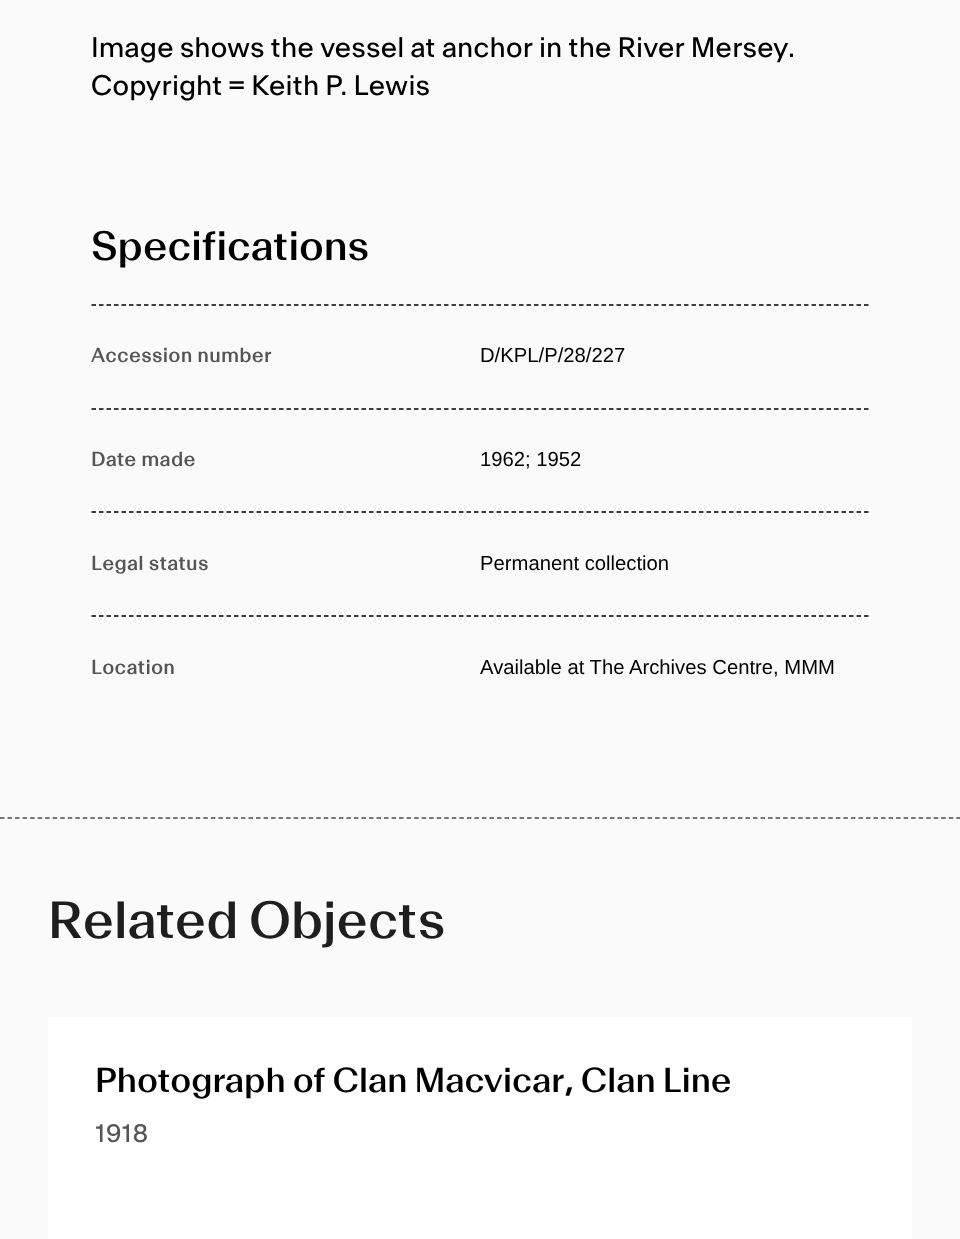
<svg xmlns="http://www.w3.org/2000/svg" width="960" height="1239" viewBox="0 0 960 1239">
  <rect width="100%" height="100%" fill="#fafafa"/>
  <path d="M91.5 305H868.5" fill="none" stroke="#000" stroke-width="1.5" stroke-dasharray="4.5 3"/>
  <path d="M91.5 409H868.5" fill="none" stroke="#000" stroke-width="1.5" stroke-dasharray="4.5 3"/>
  <path d="M91.5 512H868.5" fill="none" stroke="#000" stroke-width="1.5" stroke-dasharray="4.5 3"/>
  <path d="M91.5 616H868.5" fill="none" stroke="#000" stroke-width="1.5" stroke-dasharray="4.5 3"/>
  <path d="M0 818H960" fill="none" stroke="#4c4c4c" stroke-width="1.5" stroke-dasharray="4.5 3.03"/>
  <path d="M48 1017h864v222H48z" fill="#fff"/>
  <g font-family="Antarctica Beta" font-size="27" fill="#000">
    <text x="91" y="57">Image shows the vessel at anchor in the River Mersey.</text>
    <text x="91" y="95">Copyright = Keith P. Lewis</text>
  </g>
  <text x="91" y="260" font-family="Antarctica Beta" font-size="39" font-weight="500" fill="#000">Specifications</text>
  <text x="91" y="362" font-family="Antarctica Beta" font-size="18.5" font-weight="bold" letter-spacing="0.75" fill="#555">Accession number</text>
  <text x="480" y="362" font-family="Liberation Sans" font-size="20.25" fill="#000">D/KPL/P/28/227</text>
  <text x="91" y="466" font-family="Antarctica Beta" font-size="18.5" font-weight="bold" letter-spacing="0.75" fill="#555">Date made</text>
  <text x="480" y="466" font-family="Liberation Sans" font-size="20.25" fill="#000">1962; 1952</text>
  <text x="91" y="570" font-family="Antarctica Beta" font-size="18.5" font-weight="bold" letter-spacing="0.75" fill="#555">Legal status</text>
  <text x="480" y="570" font-family="Liberation Sans" font-size="20.25" fill="#000">Permanent collection</text>
  <text x="91" y="674" font-family="Antarctica Beta" font-size="18.5" font-weight="bold" letter-spacing="0.75" fill="#555">Location</text>
  <text x="480" y="674" font-family="Liberation Sans" font-size="20.25" fill="#000">Available at The Archives Centre, MMM</text>
  <text x="48" y="938" font-family="Antarctica Beta" font-size="49.75" font-weight="500" fill="#1e1e1e">Related Objects</text>
  <text x="95" y="1092" font-family="Antarctica Beta" font-size="33" font-weight="500" fill="#000">Photograph of Clan Macvicar, Clan Line</text>
  <text x="95" y="1142" font-family="Antarctica Beta" font-size="24" fill="#555">1918</text>
</svg>
